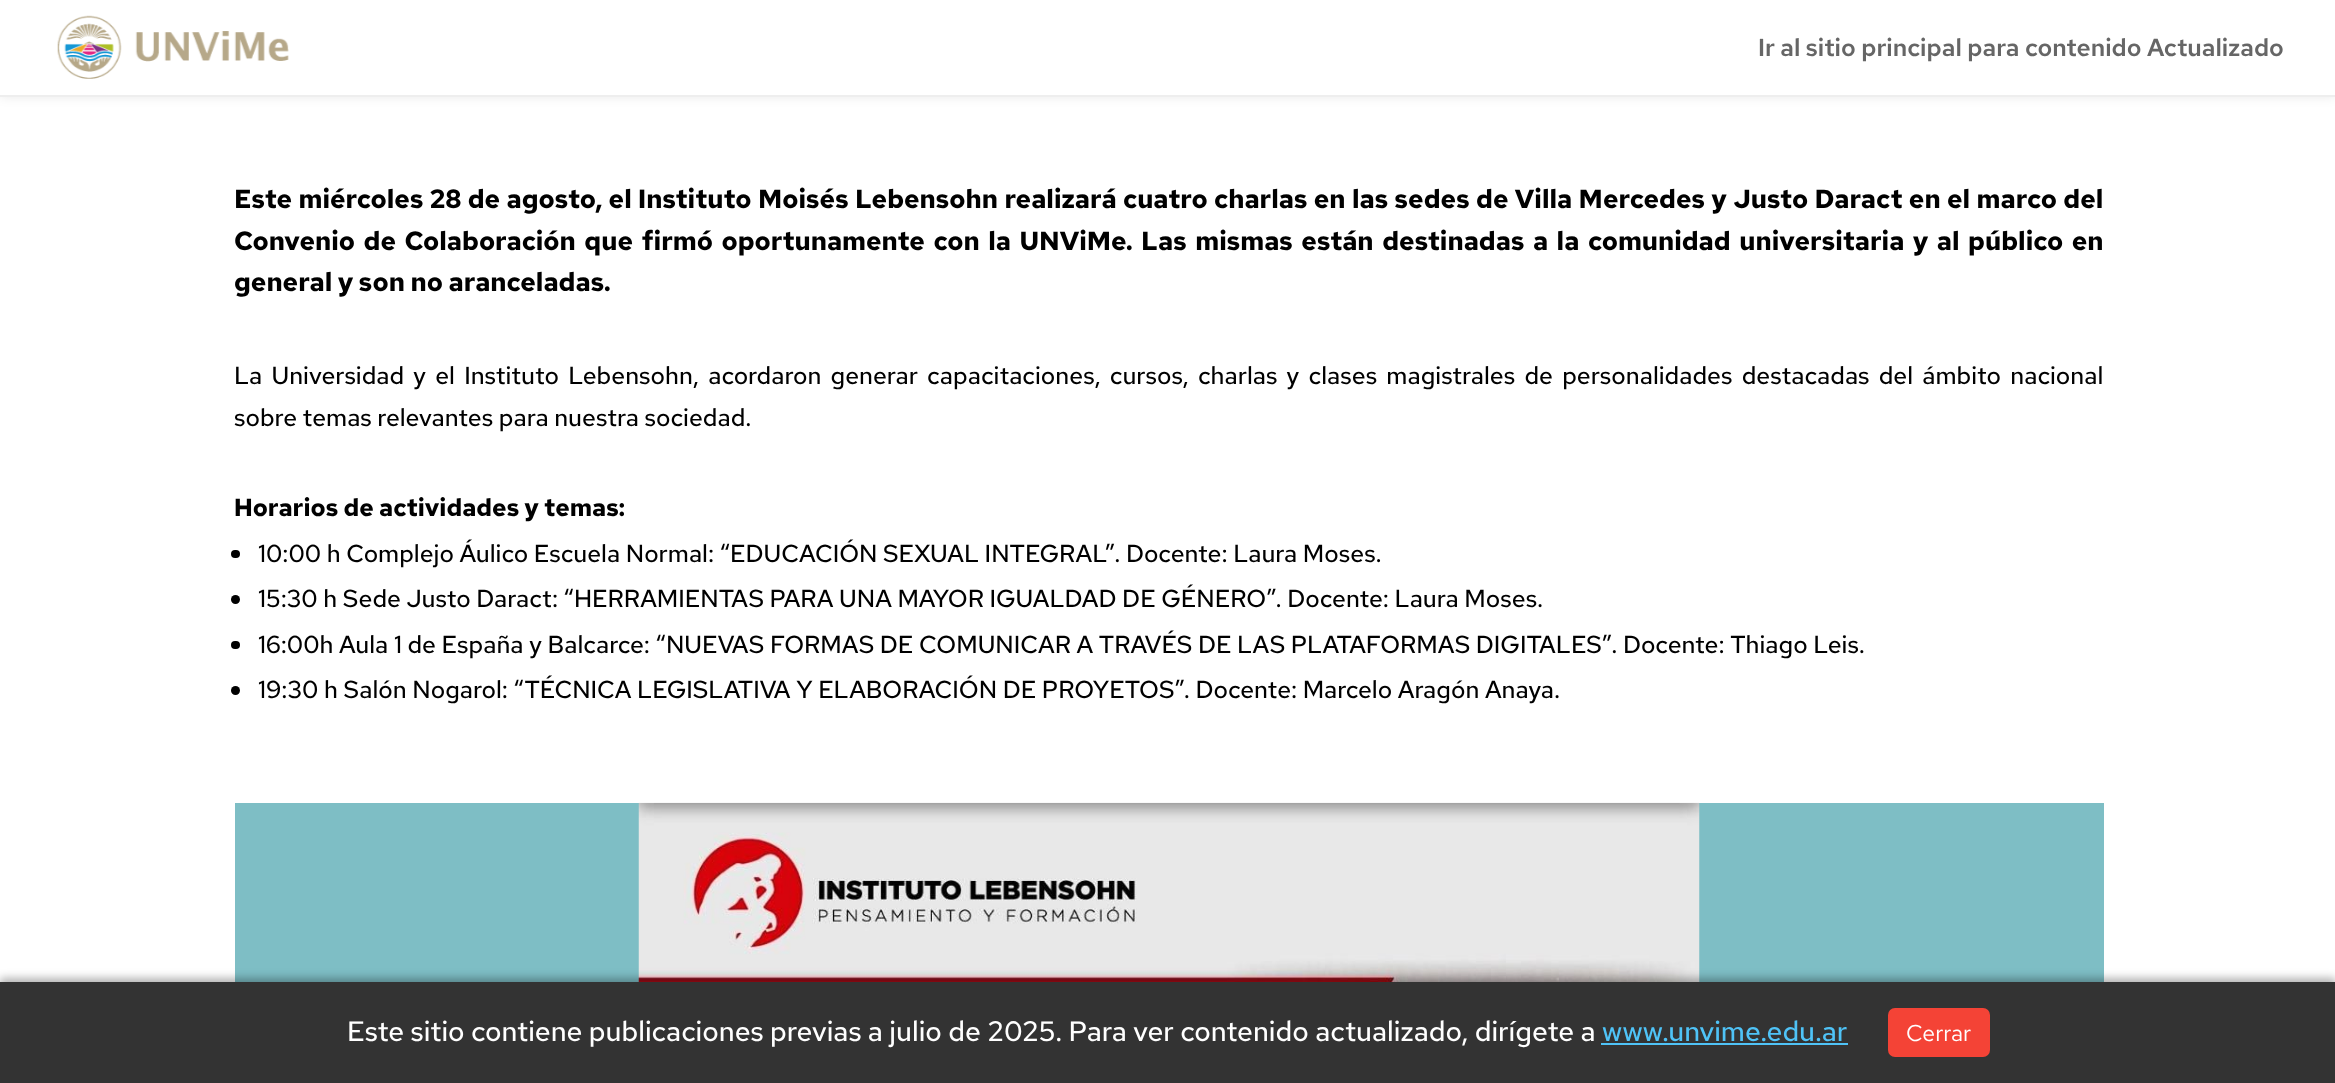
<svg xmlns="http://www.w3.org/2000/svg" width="2335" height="1083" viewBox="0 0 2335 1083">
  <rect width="100%" height="100%" fill="#fff"/>
  <path d="M0 0h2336v96H0z" fill="#0000001a" filter="blur(6px)"/>
  <path d="M0 0h2335v95H0z" fill="#fff"/>
  <path d="M0 95h2335v2H0z" fill="#eee"/>
  <image x="57" y="15" width="232" height="64" href="img/1.png"/>
  <rect x="231" y="550" width="9" height="8" rx="4" fill="#000"/>
  <circle cx="235.5" cy="599.5" r="4.5" fill="#000"/>
  <rect x="231" y="641" width="9" height="8" rx="4" fill="#000"/>
  <circle cx="235.5" cy="690.5" r="4.5" fill="#000"/>
  <path d="M235 803h1869v179H235z" fill="#7ebec5"/>
  <image x="638" y="802" width="1062" height="180" href="img/2.png"/>
  <path d="M0 978h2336v102H0z" fill="#0000004d" filter="blur(4.5px)"/>
  <path d="M0 982h2335v101H0z" fill="#333"/>
  <path d="M1601 1043h247v2H1601z" fill="#4fc3f7"/>
  <rect x="1888" y="1008" width="102" height="49" rx="7" fill="#f44336"/>
  <text x="1758" y="56" font-family="Red Hat Text" font-size="24.5" font-weight="600" fill="#666">Ir al sitio principal para contenido Actualizado</text>
  <g font-family="Red Hat Text" font-size="26.25" font-weight="bold" fill="#000">
    <text x="234" y="208" word-spacing="0.75">Este miércoles 28 de agosto, el Instituto Moisés Lebensohn realizará cuatro charlas en las sedes de Villa Mercedes y Justo Daract en el marco del</text>
    <text x="234" y="250" word-spacing="2.9">Convenio de Colaboración que firmó oportunamente con la UNViMe. Las mismas están destinadas a la comunidad universitaria y al público en</text>
    <text x="234" y="291">general y son no aranceladas.</text>
  </g>
  <g font-family="Red Hat Text" font-size="24.5" font-weight="500" fill="#000">
    <text x="234" y="384" word-spacing="3.6">La Universidad y el Instituto Lebensohn, acordaron generar capacitaciones, cursos, charlas y clases magistrales de personalidades destacadas del ámbito nacional</text>
    <text x="234" y="426">sobre temas relevantes para nuestra sociedad.</text>
  </g>
  <text x="234" y="516" font-family="Red Hat Text" font-size="24.5" font-weight="bold" fill="#000">Horarios de actividades y temas:</text>
  <g font-family="Red Hat Text" font-size="24.5" font-weight="500" fill="#000">
    <text x="258" y="562">10:00 h Complejo Áulico Escuela Normal: “EDUCACIÓN SEXUAL INTEGRAL”. Docente: Laura Moses.</text>
    <text x="258" y="607">15:30 h Sede Justo Daract: “HERRAMIENTAS PARA UNA MAYOR IGUALDAD DE GÉNERO”. Docente: Laura Moses.</text>
    <text x="258" y="653">16:00h Aula 1 de España y Balcarce: “NUEVAS FORMAS DE COMUNICAR A TRAVÉS DE LAS PLATAFORMAS DIGITALES”. Docente: Thiago Leis.</text>
    <text x="258" y="698">19:30 h Salón Nogarol: “TÉCNICA LEGISLATIVA Y ELABORACIÓN DE PROYETOS”. Docente: Marcelo Aragón Anaya.</text>
  </g>
  <text x="347" y="1041" font-family="Red Hat Text" font-size="28" font-weight="500" fill="#fff">Este sitio contiene publicaciones previas a julio de 2025. Para ver contenido actualizado, dirígete a</text>
  <text x="1602" y="1041" font-family="Red Hat Text" font-size="28" font-weight="500" fill="#4fc3f7">www.unvime.edu.ar</text>
  <text x="1906" y="1041" font-family="Red Hat Text" font-size="23" fill="#fff">Cerrar</text>
</svg>
